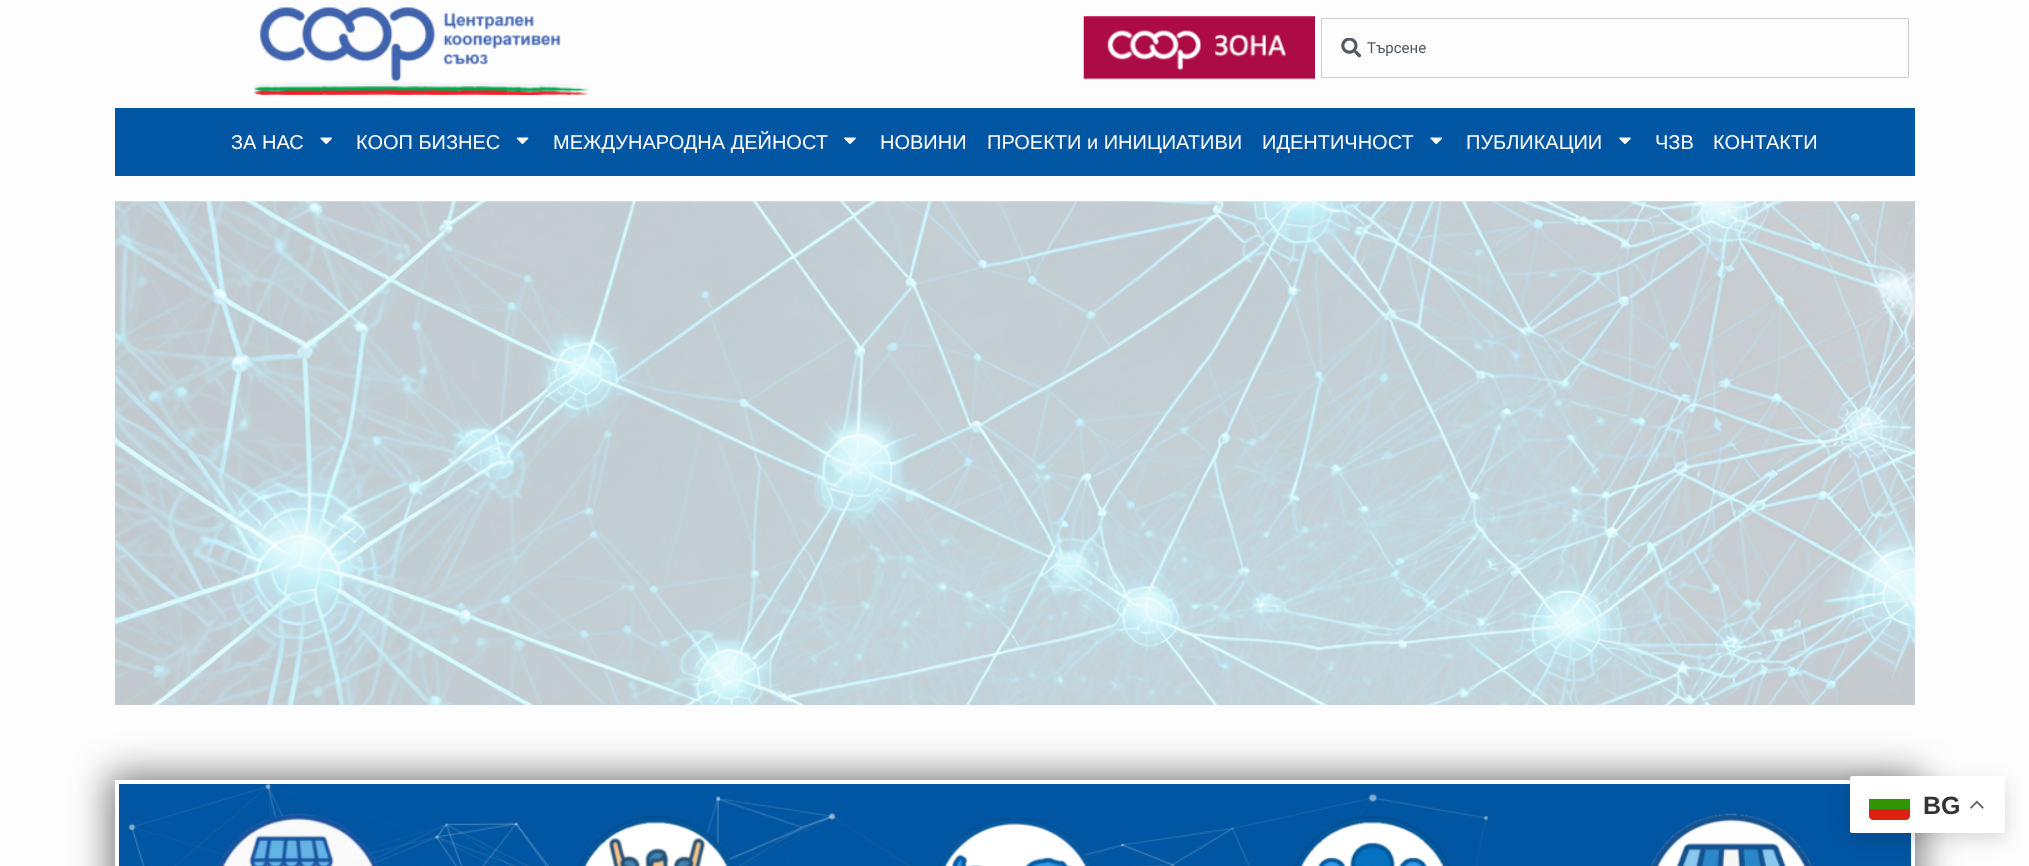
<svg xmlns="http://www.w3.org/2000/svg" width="2029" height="866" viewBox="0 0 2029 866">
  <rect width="100%" height="100%" fill="#fdfdfd"/>
  <image x="253" y="7" width="336" height="88" href="img/1.png"/>
  <image x="1083" y="16" width="232" height="64" href="img/2.png"/>
  <path d="M1321.5 18.5h587v59H1321.5z" fill="none" stroke="#cdcdcd"/>
  <image x="1341" y="38" width="20" height="20" href="img/3.png"/>
  <path d="M115 108h1800v68H115z" fill="#0056a2"/>
  <image x="320" y="137" width="12" height="7" href="img/4.png"/>
  <image x="516" y="137" width="13" height="7" href="img/5.png"/>
  <image x="844" y="137" width="12" height="7" href="img/6.png"/>
  <image x="1430" y="137" width="12" height="7" href="img/4.png"/>
  <image x="1619" y="137" width="12" height="7" href="img/6.png"/>
  <image x="115" y="201" width="1800" height="504" href="img/7.png"/>
  <path d="M109 774h1812v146H109z" fill="#00000080" filter="blur(18px)"/>
  <path d="M117 782h1796v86H117z" fill="#0056a2" stroke="#fff" stroke-width="4"/>
  <image x="128" y="784" width="1361" height="82" href="img/8.png"/>
  <image x="217" y="813" width="162" height="53" href="img/9.png"/>
  <image x="578" y="816" width="155" height="50" href="img/10.png"/>
  <image x="939" y="817" width="153" height="49" href="img/11.png"/>
  <image x="1295" y="816" width="155" height="50" href="img/12.png"/>
  <image x="1650" y="813" width="162" height="53" href="img/13.png"/>
  <rect x="1850" y="783" width="155" height="56" rx="2.5" fill="#00000026" filter="blur(9.5px)"/>
  <rect x="1850" y="776" width="155" height="57" rx="2.5" fill="#fff"/>
  <path d="M1869 809H1910V816C1910 818 1908 820 1906 820H1873C1871 820 1869 818 1869 816Z" fill="#de2110"/>
  <path d="M1869 799h41v10H1869z" fill="#319400"/>
  <image x="1970" y="800" width="14" height="9" href="img/14.png"/>
  <text x="1367" y="53" font-family="Roboto" font-size="15" fill="#515962">Търсене</text>
  <g font-family="Liberation Sans" font-size="20" fill="#fff">
    <text x="231" y="149">ЗА НАС</text>
    <text x="356" y="149">КООП БИЗНЕС</text>
    <text x="553" y="149">МЕЖДУНАРОДНА ДЕЙНОСТ</text>
    <text x="880" y="149">НОВИНИ</text>
    <text x="987" y="149">ПРОЕКТИ и ИНИЦИАТИВИ</text>
    <text x="1262" y="149">ИДЕНТИЧНОСТ</text>
    <text x="1466" y="149">ПУБЛИКАЦИИ</text>
    <text x="1655" y="149">ЧЗВ</text>
    <text x="1713" y="149">КОНТАКТИ</text>
  </g>
  <text x="1923" y="814" font-family="Liberation Sans" font-size="25" font-weight="bold" fill="#333">BG</text>
</svg>
